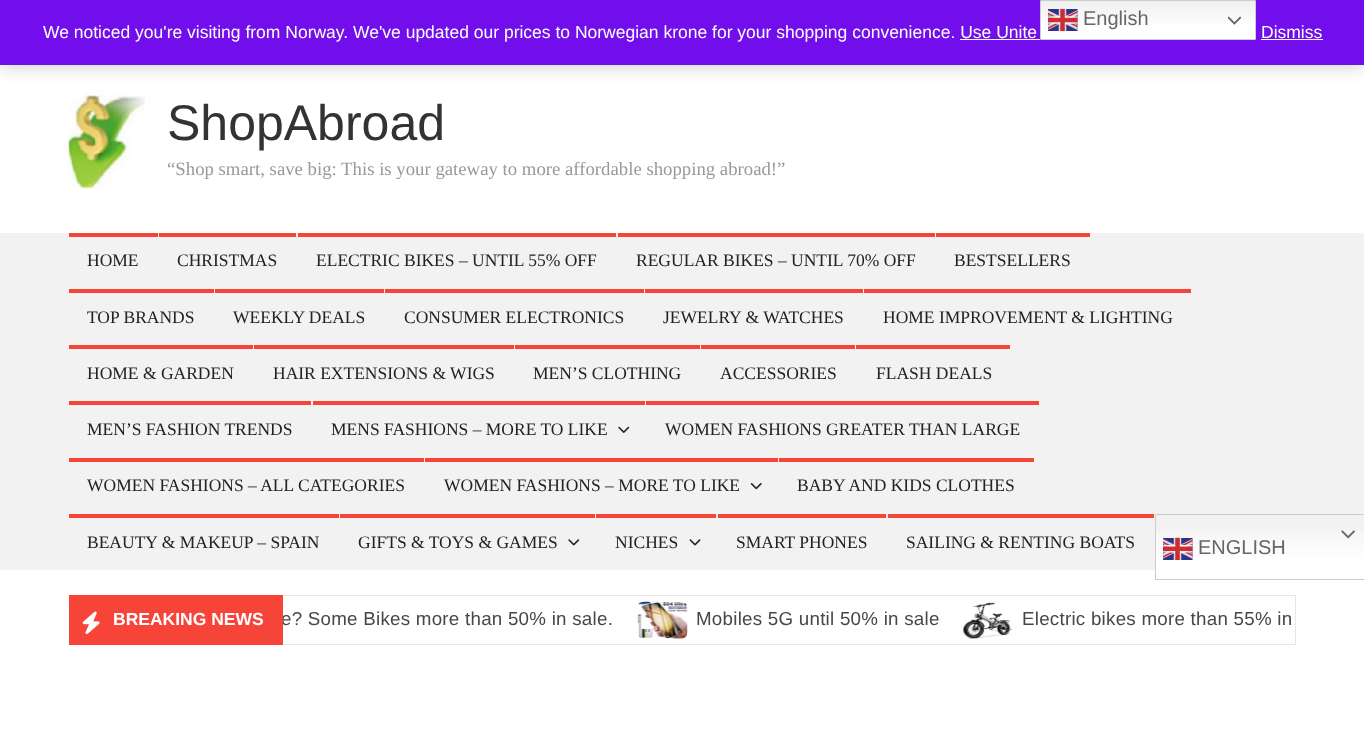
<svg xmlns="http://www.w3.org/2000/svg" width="1364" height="739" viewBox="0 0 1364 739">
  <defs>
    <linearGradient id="g1" gradientUnits="userSpaceOnUse" x1="1148" y1="0" x2="1148" y2="40"><stop offset="0" stop-color="#efefef"/><stop offset="0.7" stop-color="#fff"/></linearGradient>
    <linearGradient id="g2" gradientUnits="userSpaceOnUse" x1="1263" y1="514" x2="1263" y2="580"><stop offset="0" stop-color="#efefef"/><stop offset="0.7" stop-color="#fff"/></linearGradient>
  </defs>
  <rect width="100%" height="100%" fill="#fff"/>
  <image x="68" y="89" width="77" height="100" href="img/3.png"/>
  <path d="M0 1h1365v65H0z" fill="#00000033" filter="blur(9px)"/>
  <path d="M0 0h1364v65H0z" fill="#720eec"/>
  <path d="M1041 1h214v38H1041z" fill="url(#g1)"/>
  <path d="M1040.5 0.5h215v39H1040.5z" fill="none" stroke="#ccc"/>
  <image x="1048" y="8" width="30" height="24" href="img/1.png"/>
  <image x="1228" y="16" width="13" height="9" href="img/2.png"/>
  <path d="M1261 39h62v1H1261z" fill="#fcfbfe"/>
  <path d="M0 233h1364v337H0z" fill="#f2f2f2"/>
  <path d="M69 233h89v4H69z" fill="#f64538"/>
  <path d="M159 233h137v4H159z" fill="#f64538"/>
  <path d="M298 233h318v4H298z" fill="#f64538"/>
  <path d="M618 233h317v4H618z" fill="#f64538"/>
  <path d="M936 233h154v4H936z" fill="#f64538"/>
  <path d="M69 289h145v4H69z" fill="#f64538"/>
  <path d="M215 289h169v4H215z" fill="#f64538"/>
  <path d="M385 289h259v4H385z" fill="#f64538"/>
  <path d="M645 289h218v4H645z" fill="#f64538"/>
  <path d="M864 289h327v4H864z" fill="#f64538"/>
  <path d="M69 345h184v4H69z" fill="#f64538"/>
  <path d="M254 345h260v4H254z" fill="#f64538"/>
  <path d="M515 345h185v4H515z" fill="#f64538"/>
  <path d="M701 345h154v4H701z" fill="#f64538"/>
  <path d="M856 345h154v4H856z" fill="#f64538"/>
  <path d="M69 401h242v4H69z" fill="#f64538"/>
  <path d="M313 401h332v4H313z" fill="#f64538"/>
  <image x="618" y="426" width="12" height="7" href="img/4.png"/>
  <path d="M646 401h393v4H646z" fill="#f64538"/>
  <path d="M69 458h355v4H69z" fill="#f64538"/>
  <path d="M425 458h353v4H425z" fill="#f64538"/>
  <image x="750" y="483" width="12" height="7" href="img/5.png"/>
  <path d="M779 458h255v4H779z" fill="#f64538"/>
  <path d="M69 514h270v4H69z" fill="#f64538"/>
  <path d="M340 514h255v4H340z" fill="#f64538"/>
  <image x="568" y="539" width="12" height="7" href="img/6.png"/>
  <path d="M596 514h120v4H596z" fill="#f64538"/>
  <image x="689" y="539" width="12" height="7" href="img/7.png"/>
  <path d="M718 514h168v4H718z" fill="#f64538"/>
  <path d="M888 514h266v4H888z" fill="#f64538"/>
  <path d="M1156 530h208v40H1156z" fill="url(#g2)"/>
  <path d="M1155.5 514.5h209v65H1155.5z" fill="none" stroke="#ccc"/>
  <image x="1341" y="530" width="14" height="9" href="img/8.png"/>
  <image x="1163" y="537" width="30" height="23" href="img/9.png"/>
  <path d="M69.5 595.5h1226v49H69.5z" fill="none" stroke="#e7e7e7"/>
  <image x="637" y="601" width="51" height="38" href="img/11.png"/>
  <image x="962" y="602" width="51" height="37" href="img/12.png"/>
  <text x="1083" y="25" font-family="Liberation Sans" font-size="20" fill="#666">English</text>
  <g font-family="Liberation Sans" font-size="17.5" fill="#fff">
    <text x="43" y="38">We noticed you're visiting from Norway. We've updated our prices to Norwegian krone for your shopping convenience. Use Unite</text>
    <text x="1261" y="38">Dismiss</text>
  </g>
  <path d="M960 39h80v1H960z" fill="#fcfbfe"/>
  <text x="167" y="140" font-family="Liberation Sans" font-size="50" fill="#333">ShopAbroad</text>
  <text x="167" y="175" font-family="Liberation Serif" font-size="18.75" fill="#999">“Shop smart, save big: This is your gateway to more affordable shopping abroad!”</text>
  <g font-family="Liberation Serif" font-size="17.5" fill="#222">
    <text x="87" y="266">HOME</text>
    <text x="177" y="266">CHRISTMAS</text>
    <text x="316" y="266">ELECTRIC BIKES – UNTIL 55% OFF</text>
    <text x="636" y="266">REGULAR BIKES – UNTIL 70% OFF</text>
    <text x="954" y="266">BESTSELLERS</text>
    <text x="87" y="323">TOP BRANDS</text>
    <text x="233" y="323">WEEKLY DEALS</text>
    <text x="404" y="323">CONSUMER ELECTRONICS</text>
    <text x="663" y="323">JEWELRY &amp; WATCHES</text>
    <text x="883" y="323">HOME IMPROVEMENT &amp; LIGHTING</text>
    <text x="87" y="379">HOME &amp; GARDEN</text>
    <text x="273" y="379">HAIR EXTENSIONS &amp; WIGS</text>
    <text x="533" y="379">MEN’S CLOTHING</text>
    <text x="720" y="379">ACCESSORIES</text>
    <text x="876" y="379">FLASH DEALS</text>
    <text x="87" y="435">MEN’S FASHION TRENDS</text>
    <text x="331" y="435">MENS FASHIONS – MORE TO LIKE</text>
    <text x="665" y="435">WOMEN FASHIONS GREATER THAN LARGE</text>
    <text x="87" y="491">WOMEN FASHIONS – ALL CATEGORIES</text>
    <text x="444" y="491">WOMEN FASHIONS – MORE TO LIKE</text>
    <text x="797" y="491">BABY AND KIDS CLOTHES</text>
    <text x="87" y="548">BEAUTY &amp; MAKEUP – SPAIN</text>
    <text x="358" y="548">GIFTS &amp; TOYS &amp; GAMES</text>
    <text x="615" y="548">NICHES</text>
    <text x="736" y="548">SMART PHONES</text>
    <text x="906" y="548">SAILING &amp; RENTING BOATS</text>
  </g>
  <text x="1198" y="554" font-family="Liberation Sans" font-size="20" fill="#666">ENGLISH</text>
  <text x="281" y="625" font-family="Liberation Sans" font-size="18.75" letter-spacing="0.25" fill="#474747">e? Some Bikes more than 50% in sale.</text>
  <path d="M69 595h214v50H69z" fill="#f64538"/>
  <text x="113" y="625" font-family="Liberation Sans" font-size="17.5" font-weight="bold" fill="#fff">BREAKING NEWS</text>
  <image x="82" y="611" width="18" height="23" href="img/10.png"/>
  <g font-family="Liberation Sans" font-size="18.75" letter-spacing="0.25" fill="#474747">
    <text x="696" y="625">Mobiles 5G until 50% in sale</text>
    <text x="1022" y="625">Electric bikes more than 55% in</text>
  </g>
</svg>
